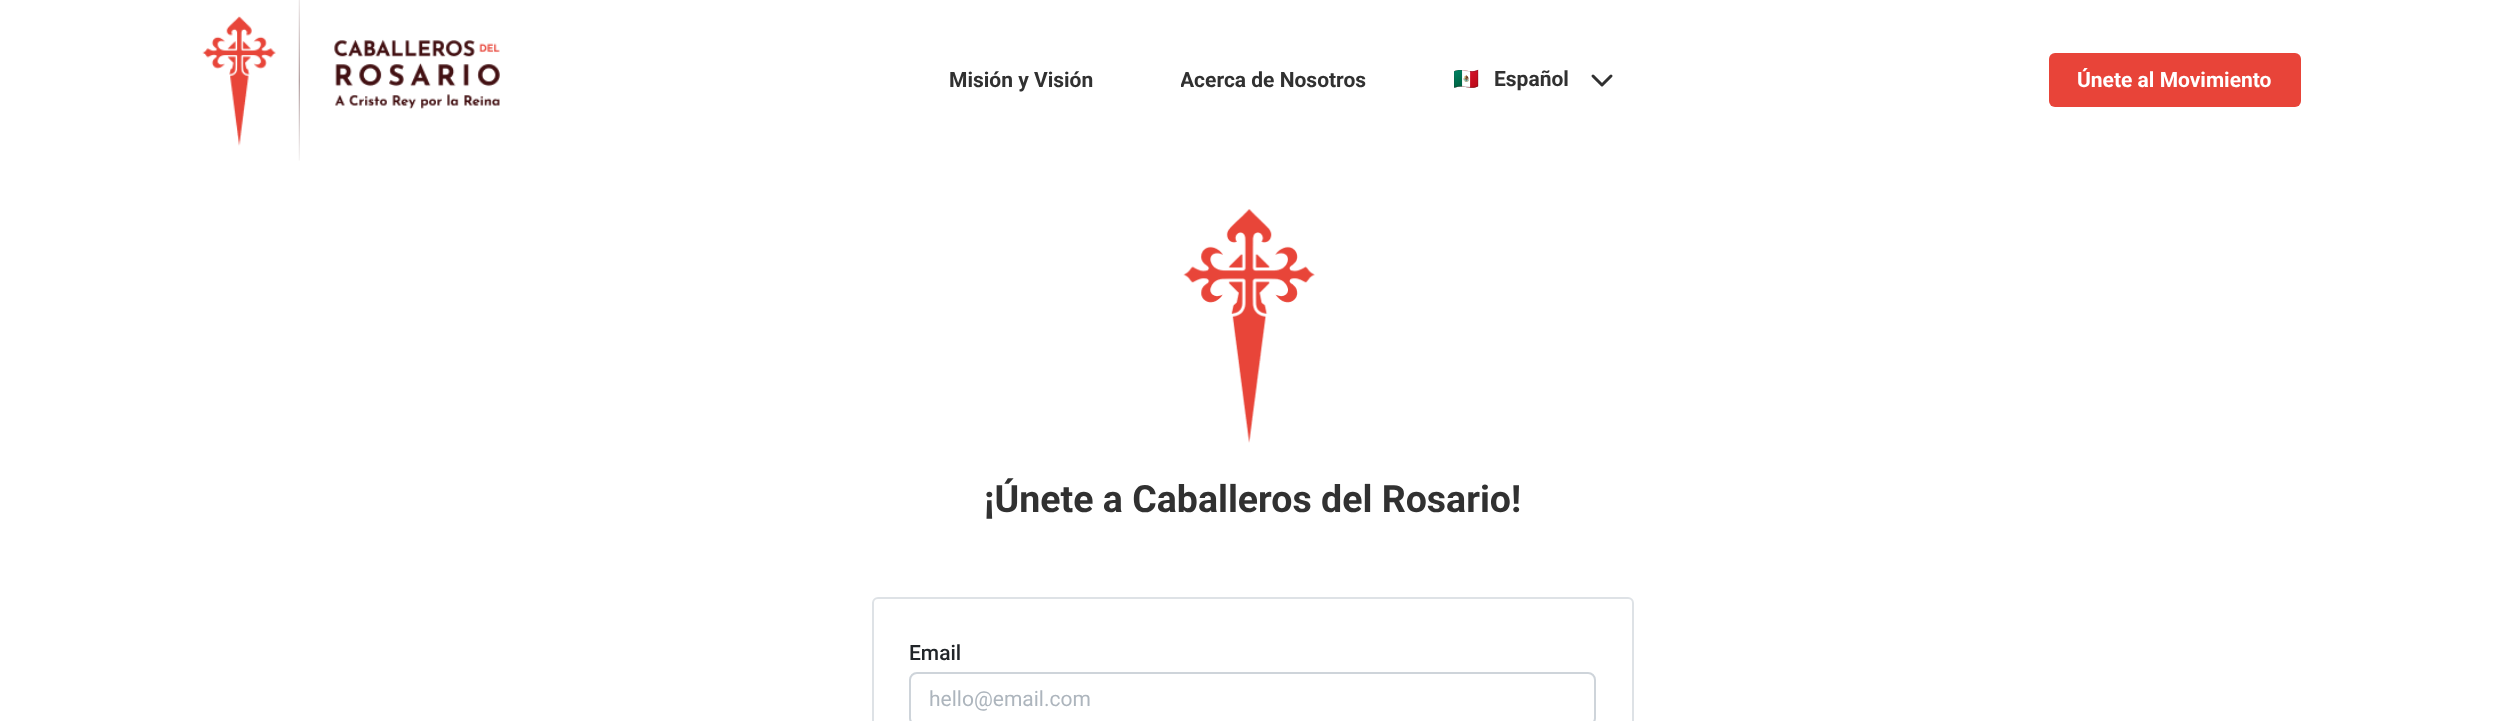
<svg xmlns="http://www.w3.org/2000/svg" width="2504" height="721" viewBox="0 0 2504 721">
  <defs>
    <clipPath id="clip1"><path d="M1181 54h186v51H1181z"/></clipPath>
    <clipPath id="clip2"><path d="M1454 54h115v51H1454z"/></clipPath>
  </defs>
  <rect width="100%" height="100%" fill="#fff"/>
  <image x="202" y="0" width="298" height="161" href="img/1.png"/>
  <path d="M1593 76L1602 85L1611 76" fill="none" stroke="#313131" stroke-width="3" stroke-linecap="round" stroke-linejoin="round"/>
  <rect x="2049" y="53" width="252" height="54" rx="6" fill="#e84439"/>
  <image x="1183" y="209" width="132" height="234" href="img/2.png"/>
  <rect x="873" y="598" width="760" height="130" rx="5" fill="none" stroke="#dee2e6" stroke-width="2"/>
  <rect x="910" y="673" width="685" height="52" rx="7" fill="none" stroke="#ced4da" stroke-width="2"/>
  <text x="949" y="87" font-family="Roboto" font-size="21" font-weight="bold" fill="#313131">Misión y Visión</text>
  <g clip-path="url(#clip1)">
    <text x="1180" y="87" font-family="Roboto" font-size="21" font-weight="bold" fill="#313131">Acerca de Nosotros</text>
  </g>
  <g clip-path="url(#clip2)">
    <text x="1453" y="86" font-family="Noto Color Emoji" font-size="21" font-weight="bold" fill="#313131">🇲🇽</text>
  </g>
  <text x="1494" y="86" font-family="Roboto" font-size="21" font-weight="bold" fill="#313131">Español</text>
  <text x="2077" y="87" font-family="Roboto" font-size="21" font-weight="bold" fill="#fff">Únete al Movimiento</text>
  <text x="984" y="512" font-family="Roboto" font-size="37.5" font-weight="bold" fill="#313131">¡Únete a Caballeros del Rosario!</text>
  <text x="909" y="660" font-family="Roboto" font-size="21" font-weight="500" fill="#212529">Email</text>
  <text x="929" y="706" font-family="Roboto" font-size="21" fill="#adb5bd">hello@email.com</text>
</svg>
